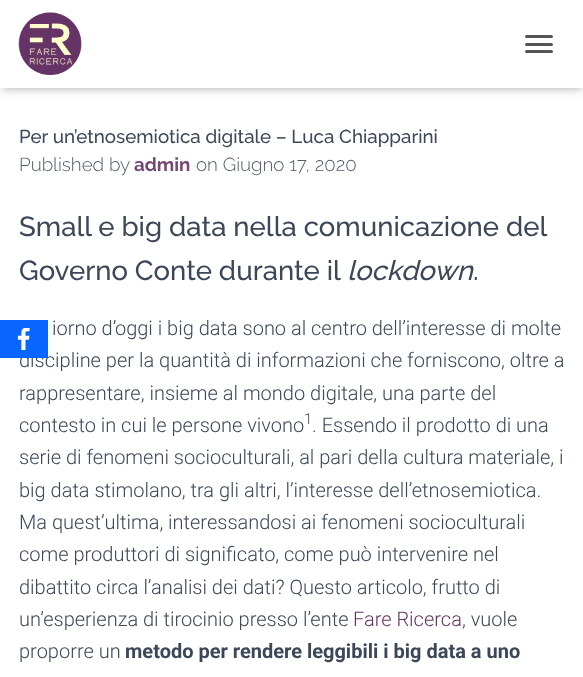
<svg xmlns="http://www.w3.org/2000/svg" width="583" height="677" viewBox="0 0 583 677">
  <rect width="100%" height="100%" fill="#fff"/>
  <path d="M3 8h578v82H3z" fill="#0000001a" filter="blur(3px)"/>
  <path d="M0 1h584v88H0z" fill="#0000001f" filter="blur(6px)"/>
  <path d="M8 9h568v72H8z" fill="#0000006b" filter="blur(6px)"/>
  <path d="M0 0h583v88H0z" fill="#fff"/>
  <image x="18" y="12" width="64" height="63" href="img/1.png"/>
  <rect x="525" y="35" width="28" height="3" rx="1.5" fill="#555"/>
  <rect x="525" y="43" width="28" height="3" rx="1.5" fill="#555"/>
  <rect x="525" y="50" width="28" height="3" rx="1.5" fill="#555"/>
  <text x="19" y="143" font-family="Raleway" font-size="18.75" font-weight="500" fill="#3c4858">Per un’etnosemiotica digitale – Luca Chiapparini</text>
  <text x="19" y="171" font-family="Raleway" font-size="18.75" font-weight="300" fill="#505a69">Published by</text>
  <text x="134" y="171" font-family="Raleway" font-size="18.75" font-weight="bold" fill="#754773">admin</text>
  <text x="196" y="171" font-family="Raleway" font-size="18.75" font-weight="300" fill="#505a69">on Giugno 17, 2020</text>
  <g font-family="Raleway" font-size="27.5" font-weight="500" fill="#3c4858">
    <text x="19" y="236">Small e big data nella comunicazione del</text>
    <text x="19" y="280">Governo Conte durante il</text>
  </g>
  <text x="347" y="280" font-family="Raleway" font-size="27.5" font-weight="500" font-style="italic" fill="#3c4858">lockdown</text>
  <text x="473" y="280" font-family="Raleway" font-size="27.5" font-weight="500" fill="#3c4858">.</text>
  <g font-family="Roboto" font-size="20" font-weight="300" fill="#3c4858">
    <text x="52" y="335">iorno d’oggi i big data sono al centro dell’interesse di molte</text>
    <text x="19" y="367">discipline per la quantità di informazioni che forniscono, oltre a</text>
    <text x="19" y="400">rappresentare, insieme al mondo digitale, una parte del</text>
    <text x="19" y="432">contesto in cui le persone vivono</text>
  </g>
  <text x="304" y="424" font-family="Roboto" font-size="15" font-weight="300" fill="#663363">1</text>
  <g font-family="Roboto" font-size="20" font-weight="300" fill="#3c4858">
    <text x="312" y="432">. Essendo il prodotto di una</text>
    <text x="19" y="464">serie di fenomeni socioculturali, al pari della cultura materiale, i</text>
    <text x="19" y="497">big data stimolano, tra gli altri, l’interesse dell’etnosemiotica.</text>
    <text x="19" y="529">Ma quest’ultima, interessandosi ai fenomeni socioculturali</text>
    <text x="19" y="561">come produttori di significato, come può intervenire nel</text>
    <text x="19" y="594">dibattito circa l’analisi dei dati? Questo articolo, frutto di</text>
    <text x="19" y="626">un’esperienza di tirocinio presso l’ente</text>
  </g>
  <text x="353" y="626" font-family="Roboto" font-size="20" font-weight="300" fill="#663363">Fare Ricerca</text>
  <g font-family="Roboto" font-size="20" font-weight="300" fill="#3c4858">
    <text x="462" y="626">, vuole</text>
    <text x="19" y="658">proporre un</text>
  </g>
  <text x="125" y="658" font-family="Roboto" font-size="20" font-weight="bold" fill="#3c4858">metodo per rendere leggibili i big data a uno</text>
  <path d="M0 320h48v38H0z" fill="#0866ff"/>
  <image x="17" y="328" width="13" height="22" href="img/2.png"/>
</svg>
